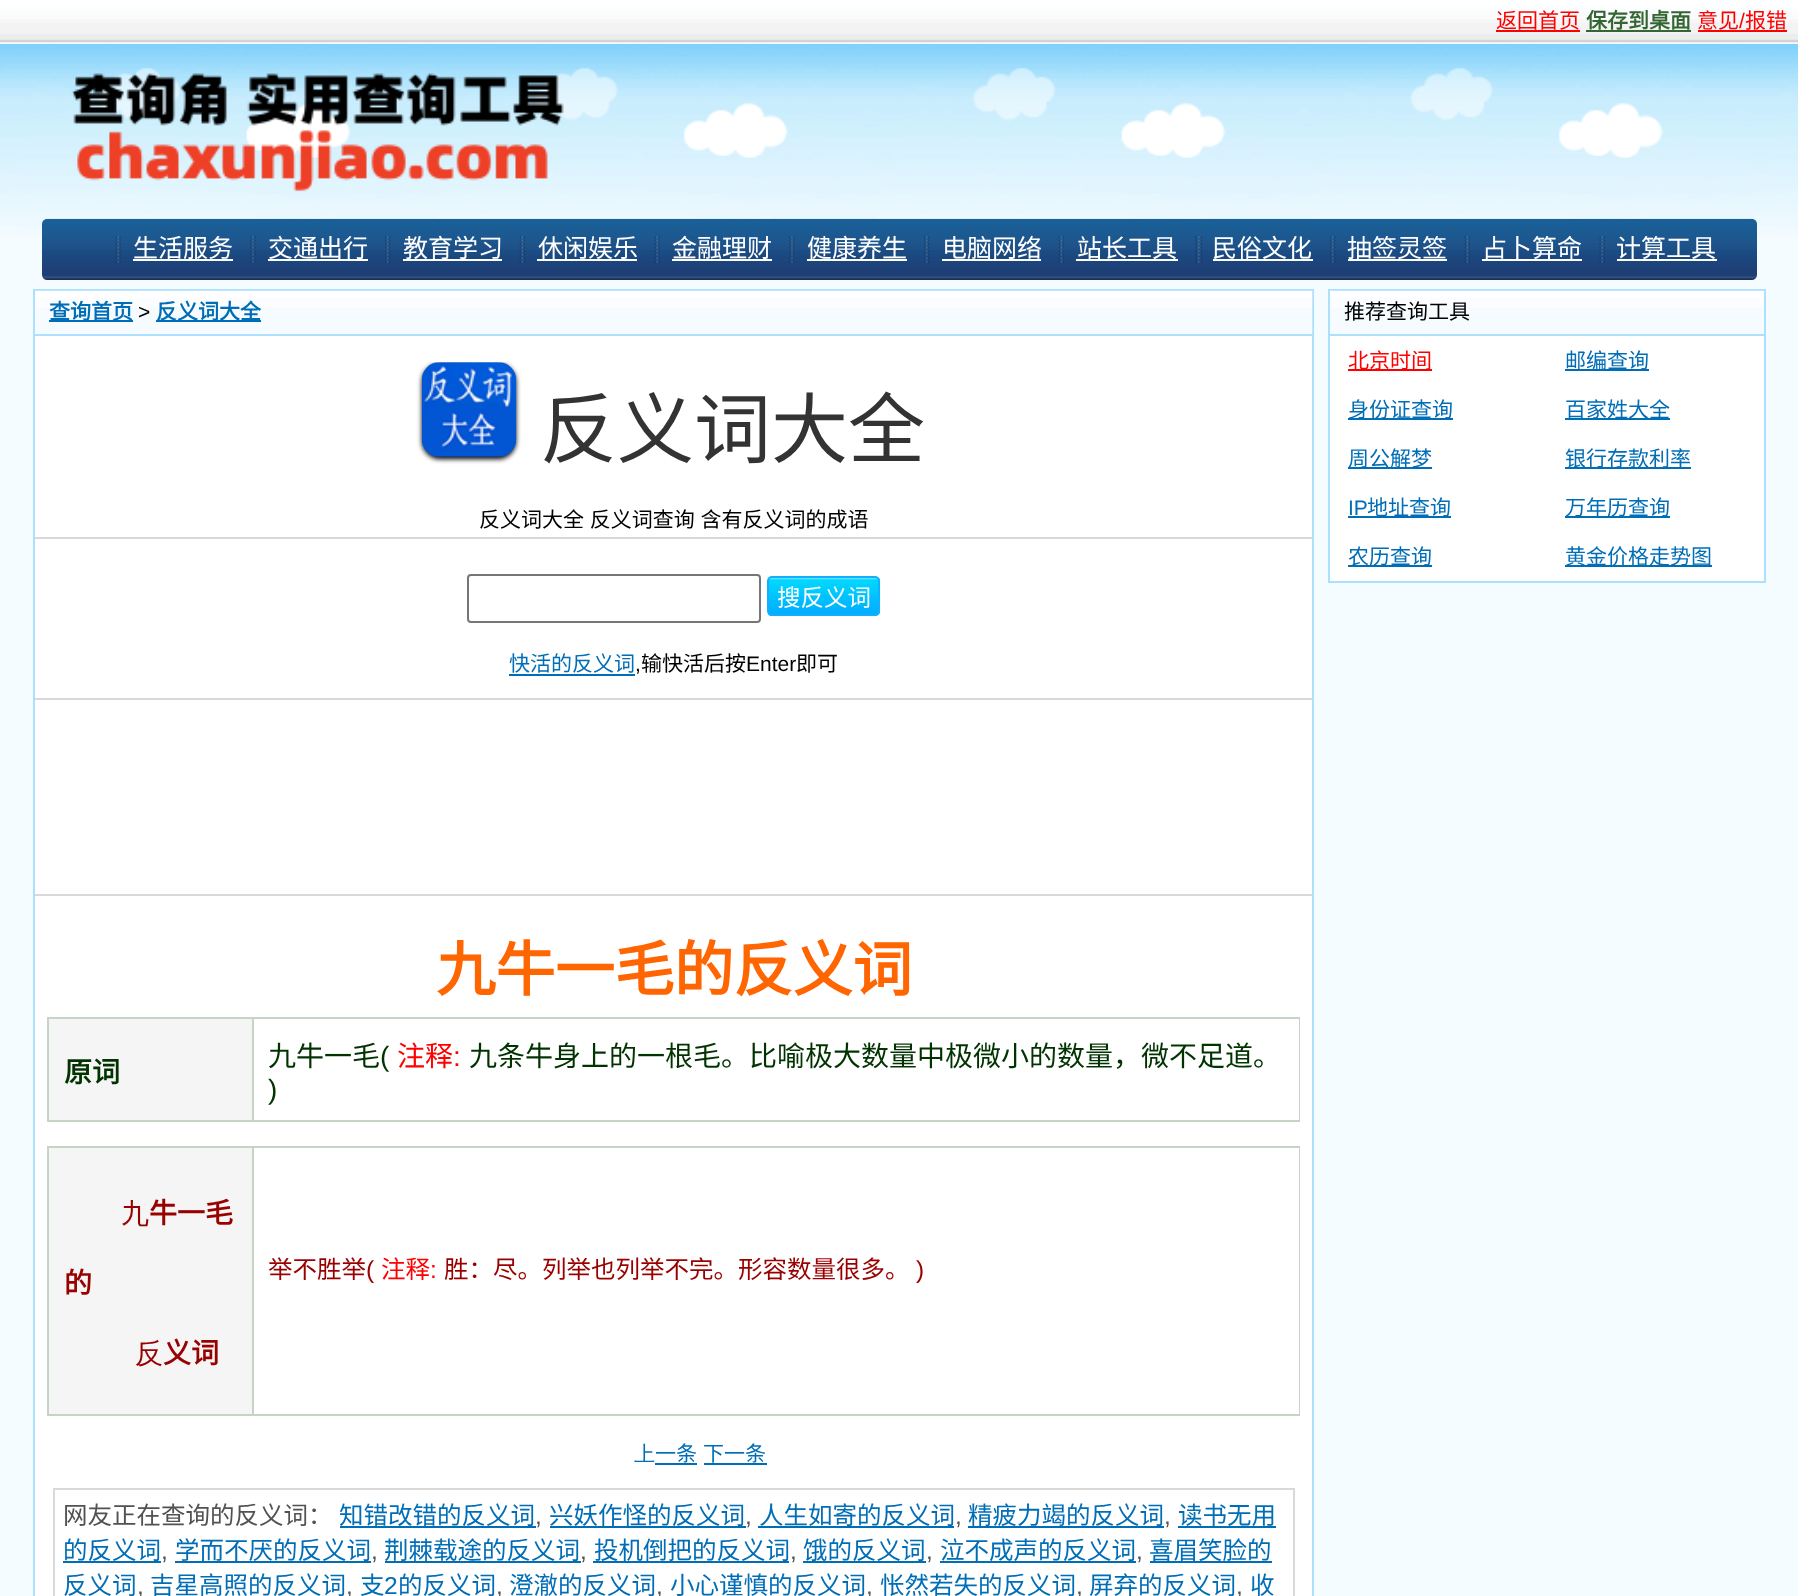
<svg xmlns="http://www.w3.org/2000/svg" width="1798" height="1596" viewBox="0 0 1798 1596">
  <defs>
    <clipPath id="clip1"><path d="M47 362h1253v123H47z"/></clipPath>
  </defs>
  <rect width="100%" height="100%" fill="#f5fcff"/>
  <image x="0" y="43" width="1798" height="193" href="img/1.png"/>
  <image x="0" y="0" width="1798" height="44" href="img/2.png"/>
  <path d="M1496 30h84v2H1496z" fill="#f00"/>
  <path d="M1586 30h105v2H1586z" fill="#363"/>
  <path d="M1698 30h89v2H1698z" fill="#f00"/>
  <image x="71" y="73" width="493" height="119" href="img/3.png"/>
  <image x="42" y="218" width="1715" height="62" href="img/4.png"/>
  <image x="115" y="236" width="6" height="27" href="img/5.png"/>
  <path d="M133 259h100v2H133z" fill="#fff"/>
  <image x="250" y="236" width="6" height="27" href="img/6.png"/>
  <path d="M268 259h100v2H268z" fill="#fff"/>
  <image x="385" y="236" width="6" height="27" href="img/7.png"/>
  <path d="M403 259h99v2H403z" fill="#fff"/>
  <image x="519" y="236" width="6" height="27" href="img/8.png"/>
  <path d="M537 259h100v2H537z" fill="#fff"/>
  <image x="654" y="236" width="6" height="27" href="img/9.png"/>
  <path d="M672 259h100v2H672z" fill="#fff"/>
  <image x="789" y="236" width="6" height="27" href="img/10.png"/>
  <path d="M807 259h100v2H807z" fill="#fff"/>
  <image x="924" y="236" width="6" height="27" href="img/11.png"/>
  <path d="M942 259h99v2H942z" fill="#fff"/>
  <image x="1058" y="236" width="6" height="27" href="img/12.png"/>
  <path d="M1076 259h102v2H1076z" fill="#fff"/>
  <image x="1195" y="236" width="8" height="27" href="img/13.png"/>
  <path d="M1213 259h100v2H1213z" fill="#fff"/>
  <image x="1330" y="236" width="6" height="27" href="img/14.png"/>
  <path d="M1348 259h99v2H1348z" fill="#fff"/>
  <image x="1464" y="236" width="6" height="27" href="img/8.png"/>
  <path d="M1482 259h100v2H1482z" fill="#fff"/>
  <image x="1599" y="236" width="6" height="27" href="img/15.png"/>
  <path d="M1617 259h100v2H1617z" fill="#fff"/>
  <path d="M35 336h1277v1260H35z" fill="#fff"/>
  <path d="M34 290h1279v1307H34z" fill="none" stroke="#addfff" stroke-width="2"/>
  <image x="35" y="290" width="1278" height="44" href="img/16.png"/>
  <path d="M35 334h1278v2H35z" fill="#addfff"/>
  <path d="M49 320h84v2H49z" fill="#006db7"/>
  <path d="M156 320h105v2H156z" fill="#006db7"/>
  <g clip-path="url(#clip1)">
    <rect x="422" y="364" width="94" height="95" rx="18" fill="#000" filter="blur(2.5px)"/>
  </g>
  <image x="421" y="362" width="96" height="95" href="img/17.png"/>
  <path d="M35 537h1278v2H35z" fill="#d9d9d9"/>
  <rect x="468" y="575" width="292" height="47" rx="3" fill="none" stroke="#767676" stroke-width="2"/>
  <image x="768" y="577" width="113" height="39" href="img/18.png"/>
  <rect x="768" y="577" width="111" height="38" rx="4" fill="none" stroke="#12afff" stroke-width="2"/>
  <path d="M509 674h126v2H509z" fill="#006db7"/>
  <path d="M35 698h1278v2H35z" fill="#d9d9d9"/>
  <path d="M35 894h1278v2H35z" fill="#d9d9d9"/>
  <path d="M47 1017h1253v105H47z" fill="#c5d5c5"/>
  <path d="M49 1019h203v101H49z" fill="#f5f5f5"/>
  <path d="M254 1019h1045v101H254z" fill="#fff"/>
  <path d="M47 1146h1253v270H47z" fill="#c5d5c5"/>
  <path d="M49 1148h203v266H49z" fill="#f5f5f5"/>
  <path d="M254 1148h1045v266H254z" fill="#fff"/>
  <path d="M655 1463h42v2H655z" fill="#006db7"/>
  <path d="M704 1463h63v2H704z" fill="#006db7"/>
  <path d="M54 1489h1240v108H54z" fill="none" stroke="#d9d9d9" stroke-width="2"/>
  <path d="M340 1526h196v2H340z" fill="#006db7"/>
  <path d="M550 1526h196v2H550z" fill="#006db7"/>
  <path d="M758 1526h196v2H758z" fill="#006db7"/>
  <path d="M968 1526h196v2H968z" fill="#006db7"/>
  <path d="M1178 1526h98v2H1178z" fill="#006db7"/>
  <path d="M63 1561h98v2H63z" fill="#006db7"/>
  <path d="M175 1561h196v2H175z" fill="#006db7"/>
  <path d="M385 1561h196v2H385z" fill="#006db7"/>
  <path d="M593 1561h196v2H593z" fill="#006db7"/>
  <path d="M803 1561h123v2H803z" fill="#006db7"/>
  <path d="M940 1561h196v2H940z" fill="#006db7"/>
  <path d="M1150 1561h122v2H1150z" fill="#006db7"/>
  <path d="M1330 336h434v245H1330z" fill="#fff"/>
  <path d="M1329 290h436v292H1329z" fill="none" stroke="#addfff" stroke-width="2"/>
  <image x="1330" y="290" width="434" height="44" href="img/19.png"/>
  <path d="M1330 334h434v2H1330z" fill="#addfff"/>
  <path d="M1348 369h84v2H1348z" fill="#f00"/>
  <path d="M1565 369h84v2H1565z" fill="#006db7"/>
  <path d="M1348 418h105v2H1348z" fill="#006db7"/>
  <path d="M1565 418h105v2H1565z" fill="#006db7"/>
  <path d="M1348 467h84v2H1348z" fill="#006db7"/>
  <path d="M1565 467h126v2H1565z" fill="#006db7"/>
  <path d="M1348 516h103v2H1348z" fill="#006db7"/>
  <path d="M1565 516h105v2H1565z" fill="#006db7"/>
  <path d="M1348 565h84v2H1348z" fill="#006db7"/>
  <path d="M1565 565h147v2H1565z" fill="#006db7"/>
  <text x="1496" y="28" font-family="Noto Sans CJK SC" font-size="21" fill="#f00">返回首页</text>
  <text x="1586" y="28" font-family="Noto Sans CJK SC" font-size="21" font-weight="bold" fill="#363">保存到桌面</text>
  <text x="1697" y="28" font-family="Noto Sans CJK SC" font-size="21" fill="#f00">意见</text>
  <text x="1739" y="28" font-family="Liberation Sans" font-size="21" fill="#f00">/</text>
  <text x="1745" y="28" font-family="Noto Sans CJK SC" font-size="21" fill="#f00">报错</text>
  <g font-family="Noto Sans CJK SC" font-size="25" fill="#fff">
    <text x="133" y="257">生活服务</text>
    <text x="268" y="257">交通出行</text>
    <text x="403" y="257">教育学习</text>
    <text x="538" y="257">休闲娱乐</text>
    <text x="672" y="257">金融理财</text>
    <text x="807" y="257">健康养生</text>
    <text x="942" y="257">电脑网络</text>
    <text x="1077" y="257">站长工具</text>
    <text x="1212" y="257">民俗文化</text>
    <text x="1347" y="257">抽签灵签</text>
    <text x="1482" y="257">占卜算命</text>
    <text x="1616" y="257">计算工具</text>
  </g>
  <text x="49" y="319" font-family="Noto Sans CJK SC" font-size="21" font-weight="bold" fill="#006db7">查询首页</text>
  <text x="138" y="319" font-family="Liberation Sans" font-size="21" fill="#000">&gt;</text>
  <text x="156" y="319" font-family="Noto Sans CJK SC" font-size="21" font-weight="bold" fill="#006db7">反义词大全</text>
  <text x="540" y="457" font-family="Noto Sans CJK SC" font-size="77" fill="#333">反义词大全</text>
  <text x="479" y="527" word-spacing="1" font-family="Noto Sans CJK SC" font-size="21" fill="#000">反义词大全 反义词查询 含有反义词的成语</text>
  <text x="777" y="606" font-family="Noto Sans CJK SC" font-size="23.5" fill="#fff">搜反义词</text>
  <text x="509" y="671" font-family="Noto Sans CJK SC" font-size="21" fill="#006db7">快活的反义词</text>
  <text x="635" y="671" font-family="Liberation Sans" font-size="21" fill="#000">,</text>
  <text x="641" y="671" font-family="Noto Sans CJK SC" font-size="21" fill="#000">输快活后按</text>
  <text x="746" y="671" font-family="Liberation Sans" font-size="21" fill="#000">Enter</text>
  <text x="796" y="671" font-family="Noto Sans CJK SC" font-size="21" fill="#000">即可</text>
  <text x="436" y="991" font-family="Noto Sans CJK SC" font-size="59.5" font-weight="bold" fill="#ff6500">九牛一毛的反义词</text>
  <text x="64" y="1082" font-family="Noto Sans CJK SC" font-size="28" font-weight="bold" fill="#030">原词</text>
  <text x="268" y="1066" font-family="Noto Sans CJK SC" font-size="28" fill="#030">九牛一毛</text>
  <text x="380" y="1066" font-family="Liberation Sans" font-size="28" fill="#030">(</text>
  <text x="397" y="1066" font-family="Noto Sans CJK SC" font-size="28" fill="#f00">注释</text>
  <text x="453" y="1066" font-family="Liberation Sans" font-size="28" fill="#f00">:</text>
  <text x="469" y="1066" font-family="Noto Sans CJK SC" font-size="28" fill="#030">九条牛身上的一根毛。比喻极大数量中极微小的数量，微不足道。</text>
  <text x="268" y="1099" font-family="Liberation Sans" font-size="28" fill="#030">)</text>
  <text x="121" y="1223" font-family="Noto Sans" font-size="28" font-weight="100" fill="#900">九</text>
  <g font-family="Noto Sans CJK SC" font-size="28" font-weight="bold" fill="#900">
    <text x="149" y="1223">牛一毛</text>
    <text x="64" y="1293">的</text>
  </g>
  <text x="135" y="1363" font-family="Noto Sans" font-size="28" font-weight="100" fill="#900">反</text>
  <text x="163" y="1363" font-family="Noto Sans CJK SC" font-size="28" font-weight="bold" fill="#900">义词</text>
  <text x="268" y="1278" font-family="Noto Sans CJK SC" font-size="24.5" fill="#900">举不胜举</text>
  <text x="366" y="1278" font-family="Liberation Sans" font-size="24.5" fill="#900">(</text>
  <text x="381" y="1278" font-family="Noto Sans CJK SC" font-size="24.5" fill="#f00">注释</text>
  <text x="430" y="1278" font-family="Liberation Sans" font-size="24.5" fill="#f00">:</text>
  <text x="444" y="1278" font-family="Noto Sans CJK SC" font-size="24.5" fill="#900">胜：尽。列举也列举不完。形容数量很多。</text>
  <text x="916" y="1278" font-family="Liberation Sans" font-size="24.5" fill="#900">)</text>
  <text x="634" y="1461" font-family="Noto Sans" font-size="21" fill="#006db7">上</text>
  <g font-family="Noto Sans CJK SC" font-size="21" fill="#006db7">
    <text x="655" y="1461">一条</text>
    <text x="703" y="1461">下一条</text>
  </g>
  <text x="63" y="1524" font-family="Noto Sans CJK SC" font-size="24.5" fill="#525252">网友正在查询的反义词：</text>
  <text x="339" y="1524" font-family="Noto Sans CJK SC" font-size="24.5" fill="#006db7">知错改错的反义词</text>
  <text x="535" y="1524" font-family="Liberation Sans" font-size="24.5" fill="#525252">,</text>
  <text x="549" y="1524" font-family="Noto Sans CJK SC" font-size="24.5" fill="#006db7">兴妖作怪的反义词</text>
  <text x="745" y="1524" font-family="Liberation Sans" font-size="24.5" fill="#525252">,</text>
  <text x="759" y="1524" font-family="Noto Sans CJK SC" font-size="24.5" fill="#006db7">人生如寄的反义词</text>
  <text x="955" y="1524" font-family="Liberation Sans" font-size="24.5" fill="#525252">,</text>
  <text x="968" y="1524" font-family="Noto Sans CJK SC" font-size="24.5" fill="#006db7">精疲力竭的反义词</text>
  <text x="1164" y="1524" font-family="Liberation Sans" font-size="24.5" fill="#525252">,</text>
  <g font-family="Noto Sans CJK SC" font-size="24.5" fill="#006db7">
    <text x="1178" y="1524">读书无用</text>
    <text x="63" y="1559">的反义词</text>
  </g>
  <text x="161" y="1559" font-family="Liberation Sans" font-size="24.5" fill="#525252">,</text>
  <text x="175" y="1559" font-family="Noto Sans CJK SC" font-size="24.5" fill="#006db7">学而不厌的反义词</text>
  <text x="371" y="1559" font-family="Liberation Sans" font-size="24.5" fill="#525252">,</text>
  <text x="384" y="1559" font-family="Noto Sans CJK SC" font-size="24.5" fill="#006db7">荆棘载途的反义词</text>
  <text x="580" y="1559" font-family="Liberation Sans" font-size="24.5" fill="#525252">,</text>
  <text x="594" y="1559" font-family="Noto Sans CJK SC" font-size="24.5" fill="#006db7">投机倒把的反义词</text>
  <text x="790" y="1559" font-family="Liberation Sans" font-size="24.5" fill="#525252">,</text>
  <text x="803" y="1559" font-family="Noto Sans CJK SC" font-size="24.5" fill="#006db7">饿的反义词</text>
  <text x="926" y="1559" font-family="Liberation Sans" font-size="24.5" fill="#525252">,</text>
  <text x="940" y="1559" font-family="Noto Sans CJK SC" font-size="24.5" fill="#006db7">泣不成声的反义词</text>
  <text x="1136" y="1559" font-family="Liberation Sans" font-size="24.5" fill="#525252">,</text>
  <g font-family="Noto Sans CJK SC" font-size="24.5" fill="#006db7">
    <text x="1149" y="1559">喜眉笑脸的</text>
    <text x="63" y="1594">反义词</text>
  </g>
  <text x="137" y="1594" font-family="Liberation Sans" font-size="24.5" fill="#525252">,</text>
  <text x="150" y="1594" font-family="Noto Sans CJK SC" font-size="24.5" fill="#006db7">吉星高照的反义词</text>
  <text x="346" y="1594" font-family="Liberation Sans" font-size="24.5" fill="#525252">,</text>
  <text x="360" y="1594" font-family="Noto Sans CJK SC" font-size="24.5" fill="#006db7">支</text>
  <text x="384" y="1594" font-family="Liberation Sans" font-size="24.5" fill="#006db7">2</text>
  <text x="398" y="1594" font-family="Noto Sans CJK SC" font-size="24.5" fill="#006db7">的反义词</text>
  <text x="496" y="1594" font-family="Liberation Sans" font-size="24.5" fill="#525252">,</text>
  <text x="509" y="1594" font-family="Noto Sans CJK SC" font-size="24.5" fill="#006db7">澄澈的反义词</text>
  <text x="656" y="1594" font-family="Liberation Sans" font-size="24.5" fill="#525252">,</text>
  <text x="670" y="1594" font-family="Noto Sans CJK SC" font-size="24.5" fill="#006db7">小心谨慎的反义词</text>
  <text x="866" y="1594" font-family="Liberation Sans" font-size="24.5" fill="#525252">,</text>
  <text x="880" y="1594" font-family="Noto Sans CJK SC" font-size="24.5" fill="#006db7">怅然若失的反义词</text>
  <text x="1076" y="1594" font-family="Liberation Sans" font-size="24.5" fill="#525252">,</text>
  <text x="1089" y="1594" font-family="Noto Sans CJK SC" font-size="24.5" fill="#006db7">屏弃的反义词</text>
  <text x="1236" y="1594" font-family="Liberation Sans" font-size="24.5" fill="#525252">,</text>
  <text x="1250" y="1594" font-family="Noto Sans CJK SC" font-size="24.5" fill="#006db7">收</text>
  <text x="1344" y="319" font-family="Noto Sans CJK SC" font-size="21" fill="#000">推荐查询工具</text>
  <text x="1348" y="368" font-family="Noto Sans CJK SC" font-size="21" fill="#f00">北京时间</text>
  <g font-family="Noto Sans CJK SC" font-size="21" fill="#006db7">
    <text x="1565" y="368">邮编查询</text>
    <text x="1348" y="417">身份证查询</text>
    <text x="1565" y="417">百家姓大全</text>
    <text x="1348" y="466">周公解梦</text>
    <text x="1565" y="466">银行存款利率</text>
  </g>
  <text x="1348" y="515" font-family="Liberation Sans" font-size="21" fill="#006db7">IP</text>
  <g font-family="Noto Sans CJK SC" font-size="21" fill="#006db7">
    <text x="1367" y="515">地址查询</text>
    <text x="1565" y="515">万年历查询</text>
    <text x="1348" y="564">农历查询</text>
    <text x="1565" y="564">黄金价格走势图</text>
  </g>
</svg>
